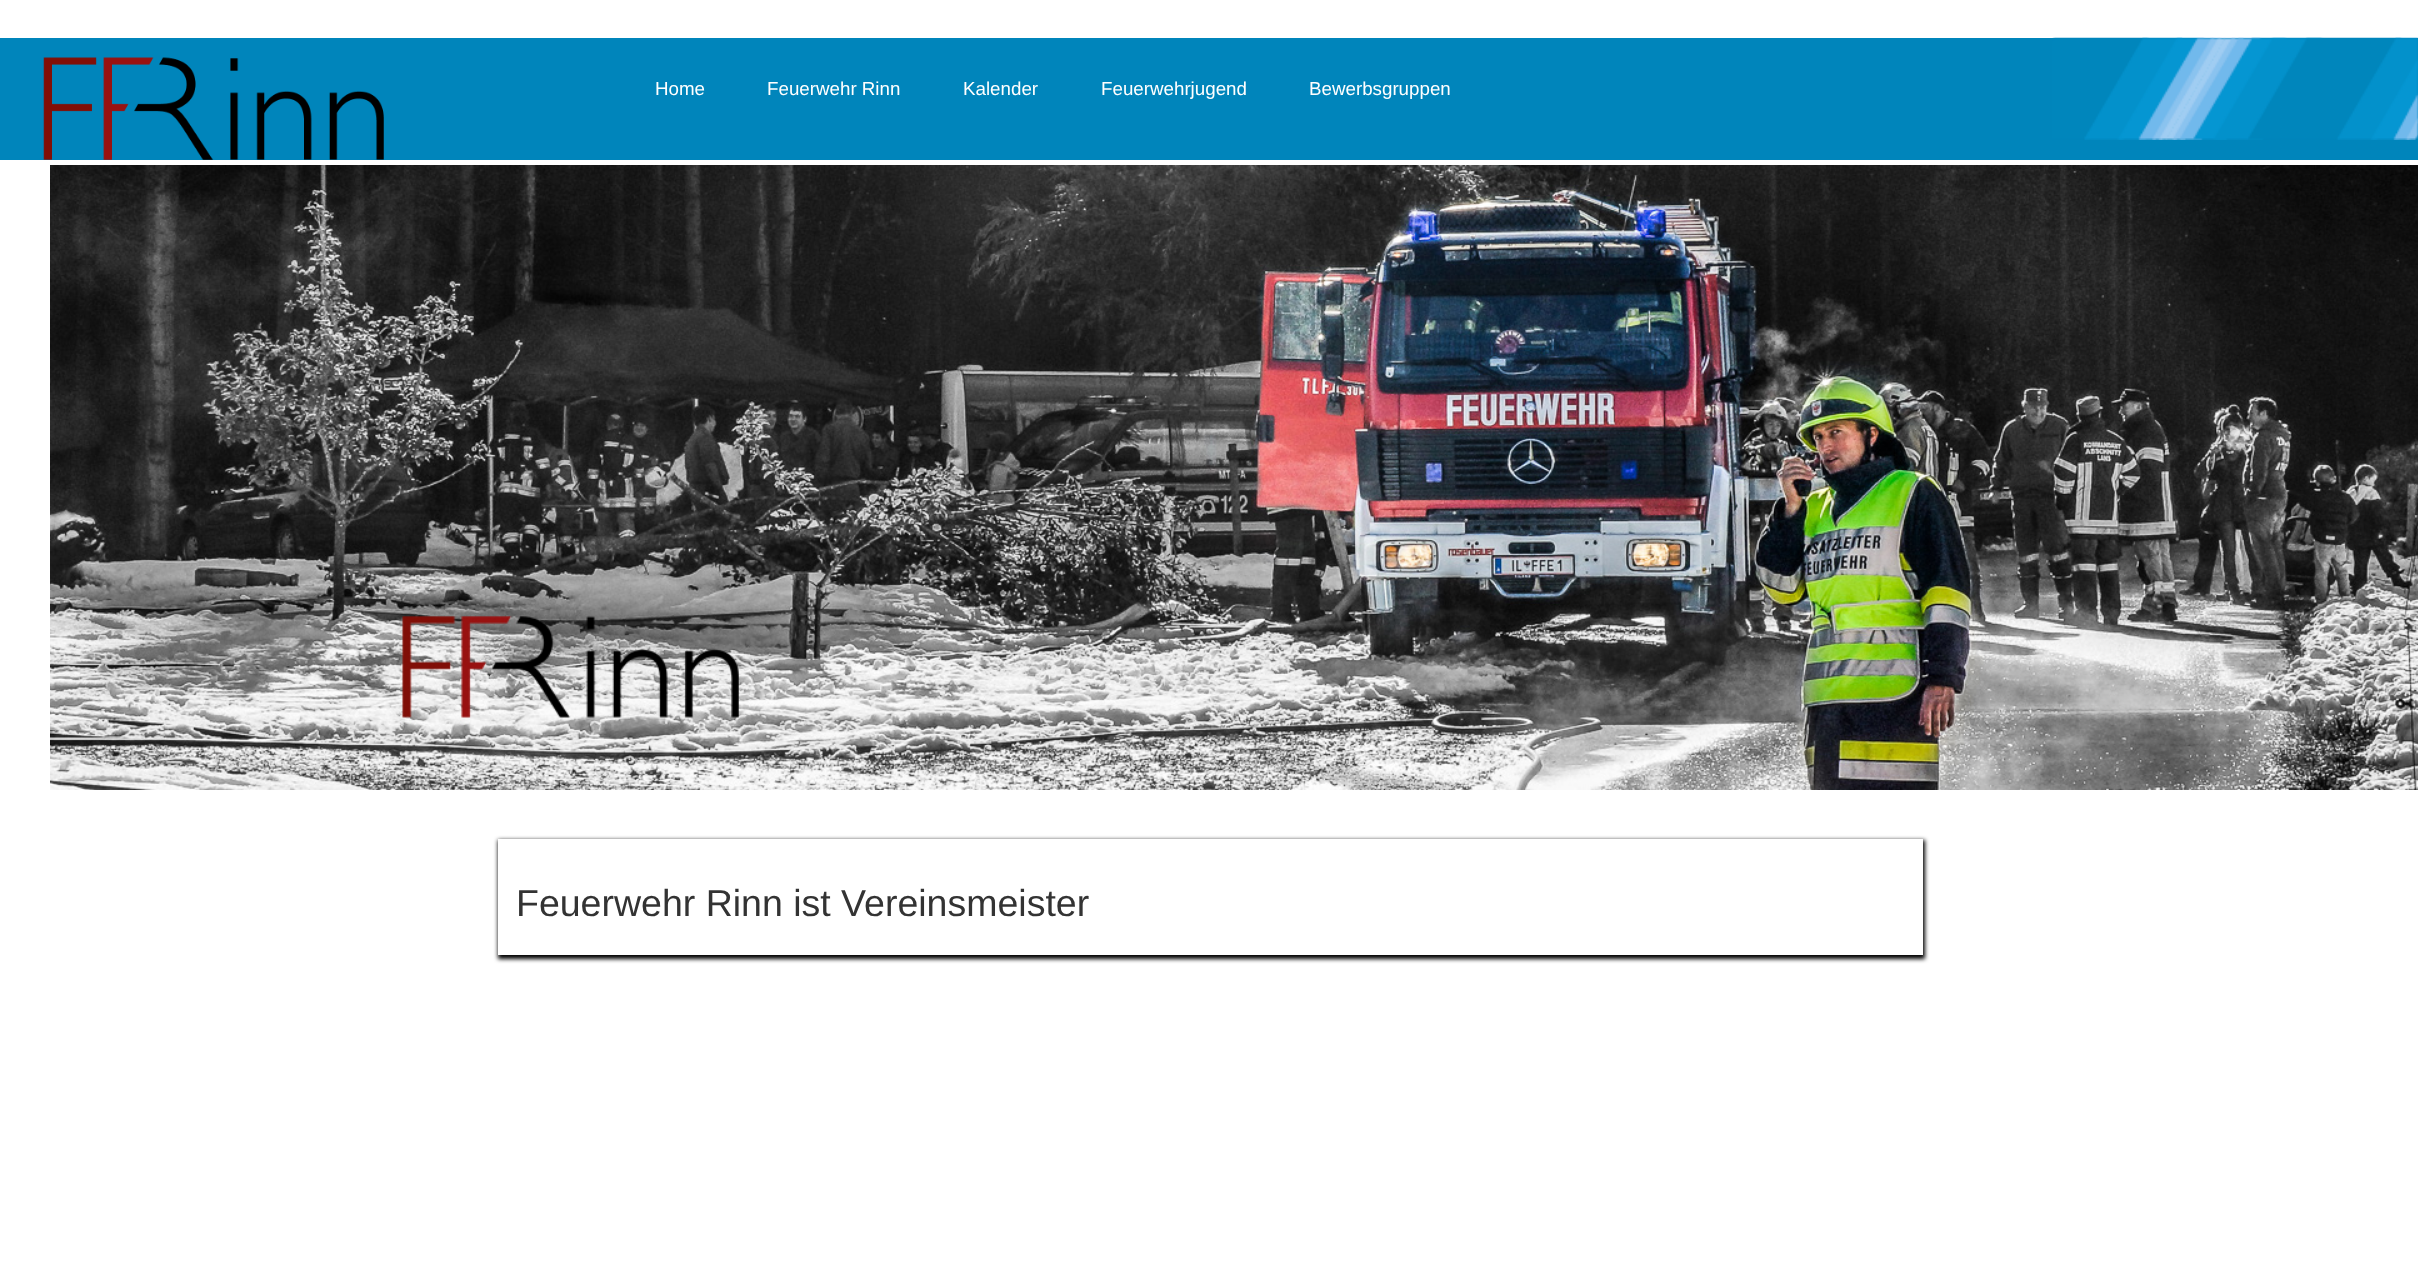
<svg xmlns="http://www.w3.org/2000/svg" width="2418" height="1262" viewBox="0 0 2418 1262">
  <rect width="100%" height="100%" fill="#fff"/>
  <path d="M0 38h2418v122H0z" fill="#0085bb"/>
  <image x="43" y="57" width="341" height="103" href="img/1.png"/>
  <image x="2052" y="37" width="366" height="103" href="img/2.png"/>
  <image x="50" y="165" width="2368" height="625" href="img/3.png"/>
  <path d="M498 840h1427v119H498z" fill="#000" filter="blur(2px)"/>
  <path d="M498 839h1425v116H498z" fill="#fff"/>
  <g font-family="Liberation Sans" font-size="18.75" fill="#fff">
    <text x="655" y="95">Home</text>
    <text x="767" y="95">Feuerwehr Rinn</text>
    <text x="963" y="95">Kalender</text>
    <text x="1101" y="95">Feuerwehrjugend</text>
    <text x="1309" y="95">Bewerbsgruppen</text>
  </g>
  <text x="516" y="916" font-family="Liberation Sans" font-size="37.5" fill="#333">Feuerwehr Rinn ist Vereinsmeister</text>
</svg>
